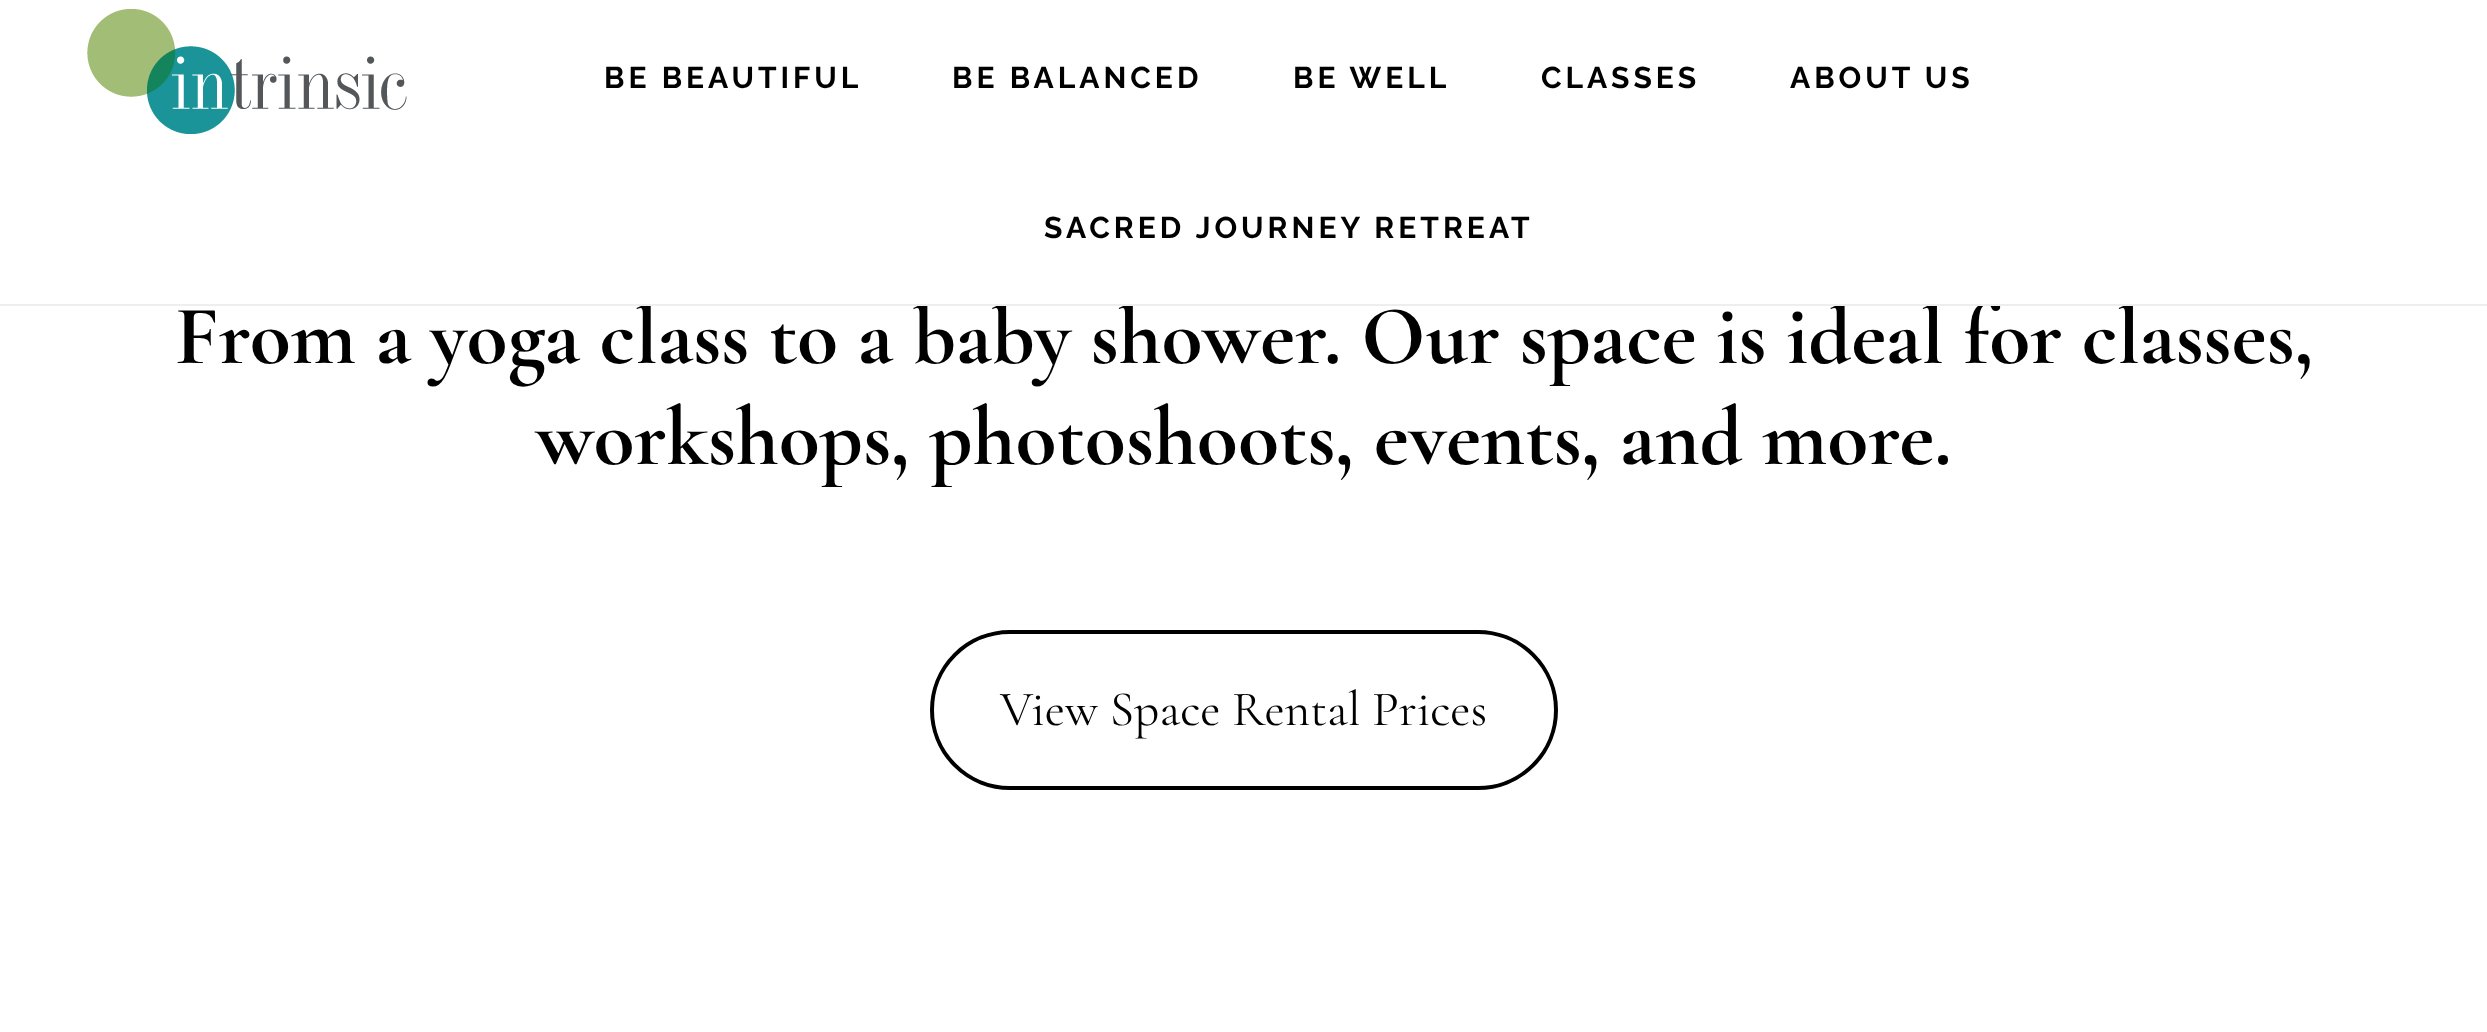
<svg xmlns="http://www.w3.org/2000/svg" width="2487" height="1032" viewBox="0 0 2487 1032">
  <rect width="100%" height="100%" fill="#fff"/>
  <image x="87" y="9" width="320" height="125" href="img/1.png"/>
  <rect x="932" y="632" width="624" height="156" rx="78" fill="none" stroke="#000" stroke-width="4"/>
  <g font-family="Raleway" font-size="30" font-weight="100" letter-spacing="4" fill="#000">
    <text x="604" y="88">BE BEAUTIFUL</text>
    <text x="952" y="88">BE BALANCED</text>
    <text x="1293" y="88">BE WELL</text>
    <text x="1541" y="88">CLASSES</text>
    <text x="1790" y="88">ABOUT US</text>
    <text x="1044" y="238">SACRED JOURNEY RETREAT</text>
  </g>
  <text x="175" y="363" font-family="Cormorant Garamond" font-size="84" font-weight="bold" fill="#000">From a yoga class to a baby shower. Our space is ideal for classes,</text>
  <path d="M0 304h2487v2H0z" fill="#eee"/>
  <path d="M644 302h1489v2H644z" fill="#fff"/>
  <text x="536" y="464" font-family="Cormorant Garamond" font-size="84" font-weight="bold" fill="#000">workshops, photoshoots, events, and more.</text>
  <text x="1000" y="725" font-family="Cormorant Garamond" font-size="49.5" fill="#000">View Space Rental Prices</text>
</svg>
